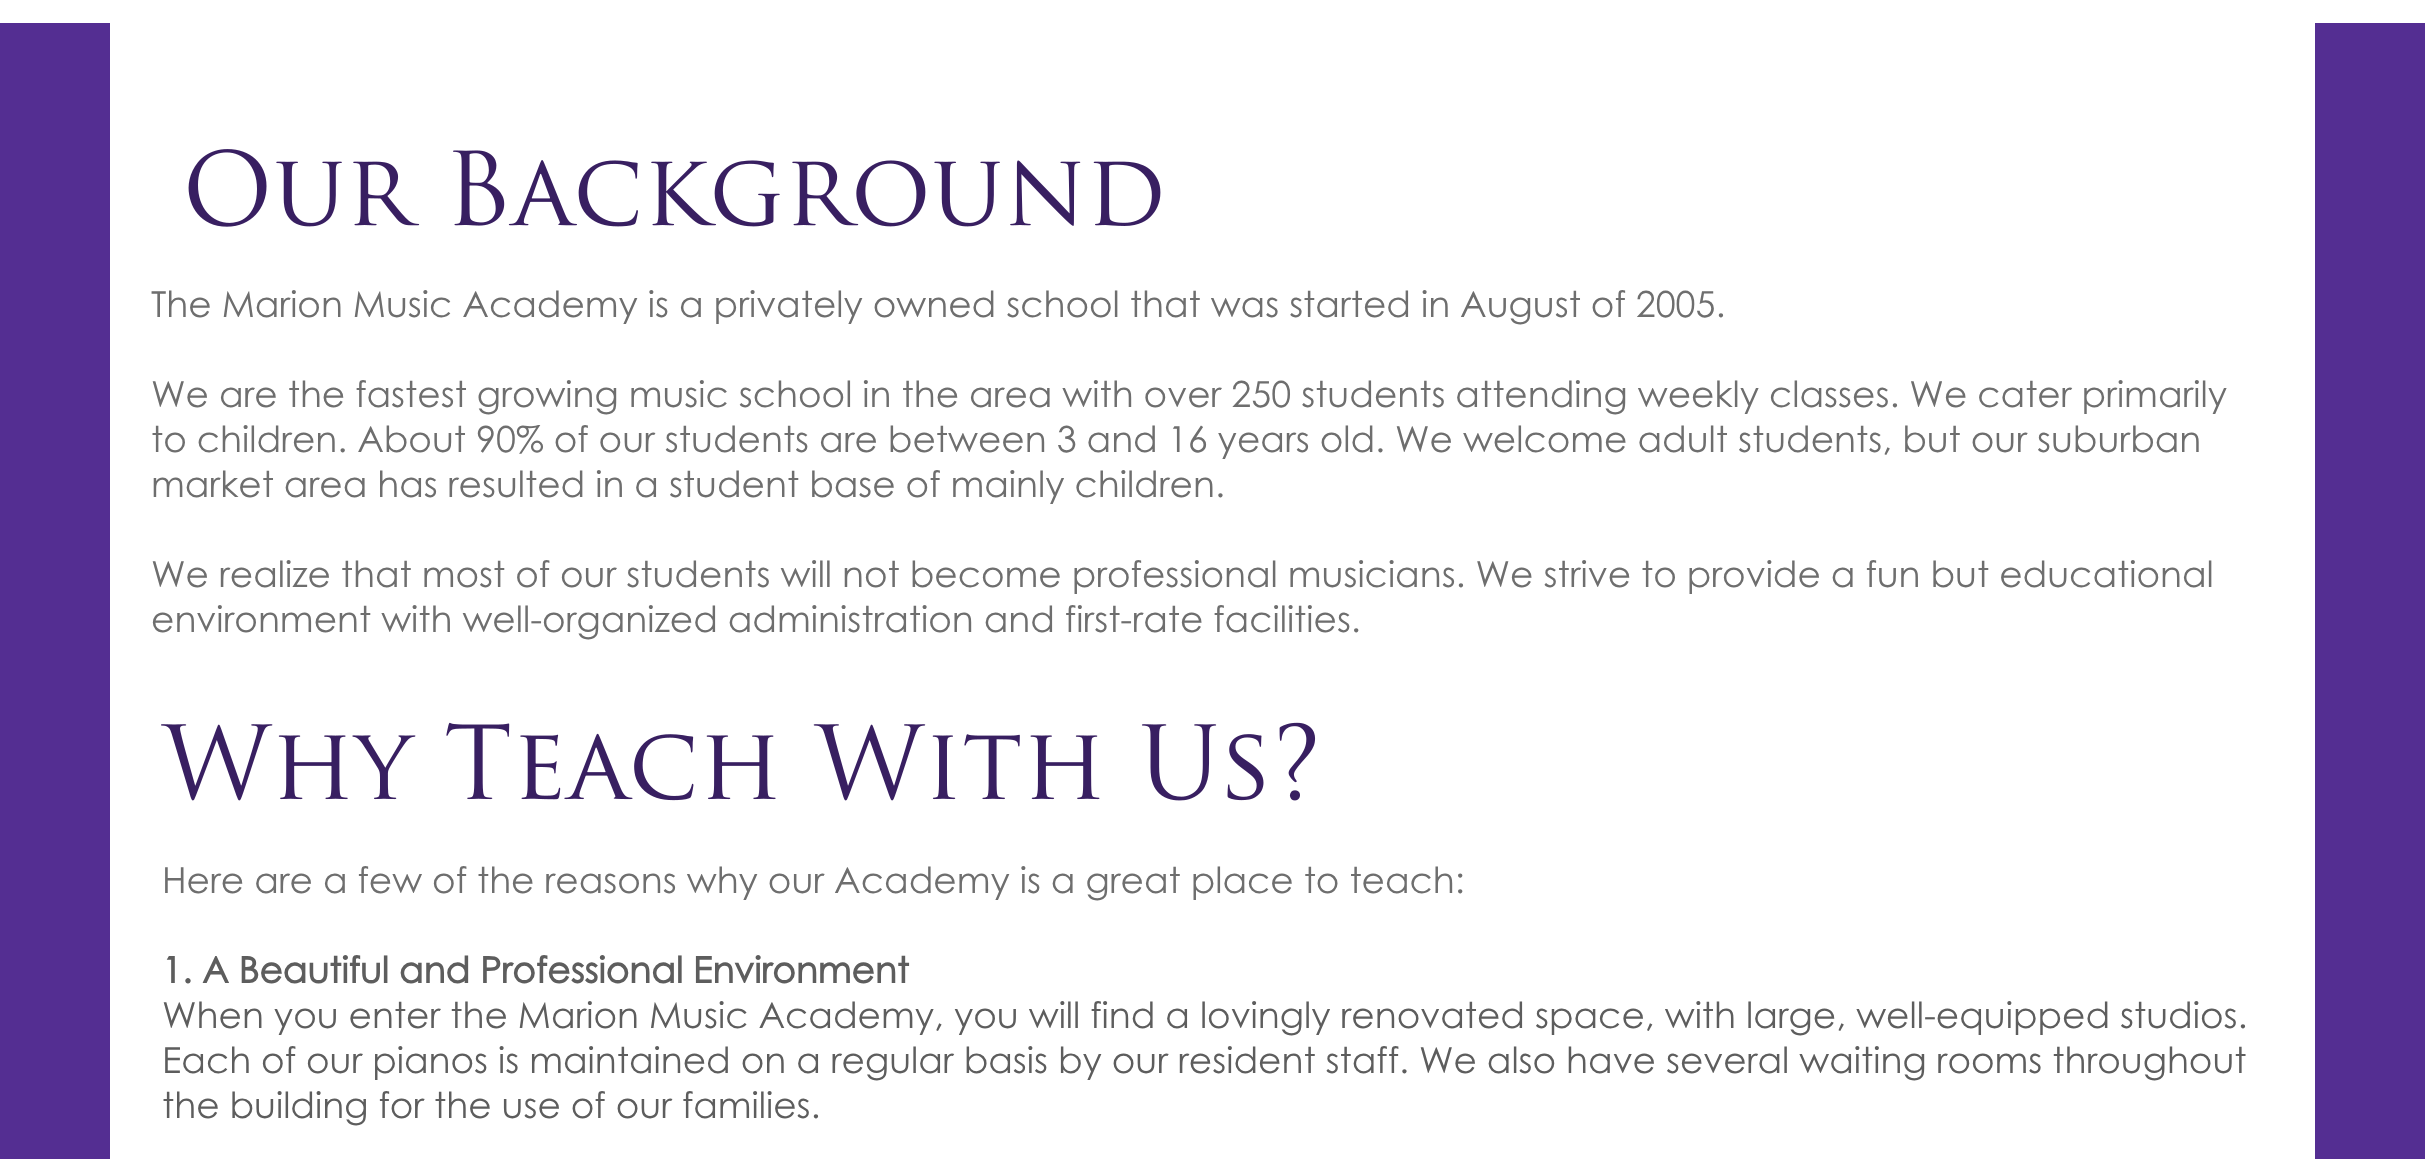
<svg xmlns="http://www.w3.org/2000/svg" width="2425" height="1159" viewBox="0 0 2425 1159">
  <rect width="100%" height="100%" fill="#542e92"/>
  <path d="M110 23h2205v1136H110z" fill="#fff"/>
  <path d="M0 0h2425v23H0z" fill="#fff"/>
  <image x="188" y="149" width="973" height="78" href="img/1.png"/>
  <image x="161" y="722" width="1155" height="79" href="img/2.png"/>
  <g font-family="Century Gothic" font-size="36" fill="#6e6e6e">
    <text x="151" y="317">The Marion Music Academy is a privately owned school that was started in August of 2005.</text>
    <text x="151" y="407">We are the fastest growing music school in the area with over 250 students attending weekly classes. We cater primarily</text>
    <text x="151" y="452">to children. About 90% of our students are between 3 and 16 years old. We welcome adult students, but our suburban</text>
    <text x="151" y="497">market area has resulted in a student base of mainly children.</text>
    <text x="151" y="587">We realize that most of our students will not become professional musicians. We strive to provide a fun but educational</text>
    <text x="151" y="632">environment with well-organized administration and first-rate facilities.</text>
    <text x="162" y="893">Here are a few of the reasons why our Academy is a great place to teach:</text>
  </g>
  <text x="162" y="983" font-family="Century Gothic" font-size="36" font-weight="bold" fill="#5d5d5d">1. A Beautiful and Professional Environment</text>
  <g font-family="Century Gothic" font-size="36" fill="#5d5d5d">
    <text x="162" y="1028">When you enter the Marion Music Academy, you will find a lovingly renovated space, with large, well-equipped studios.</text>
    <text x="162" y="1073">Each of our pianos is maintained on a regular basis by our resident staff. We also have several waiting rooms throughout</text>
    <text x="162" y="1118">the building for the use of our families.</text>
  </g>
</svg>
